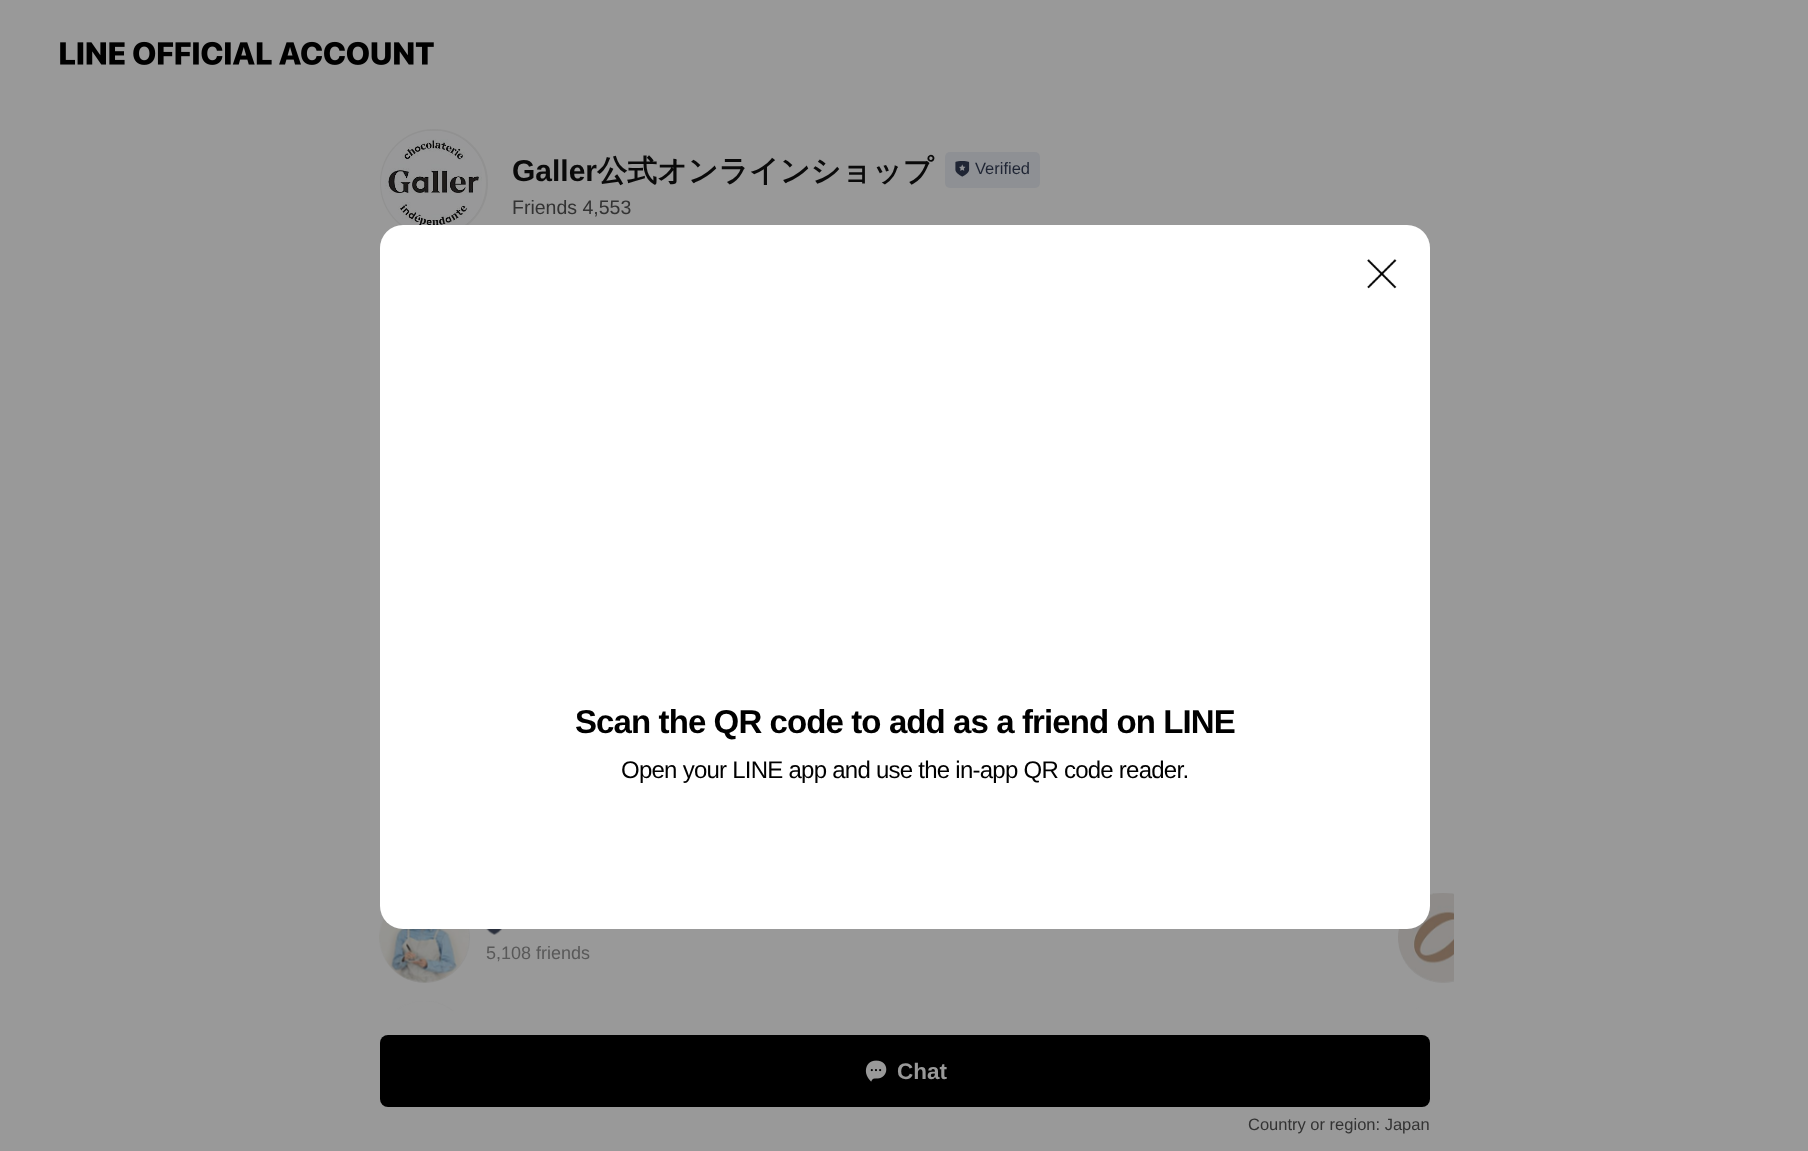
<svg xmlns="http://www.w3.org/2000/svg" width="1808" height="1151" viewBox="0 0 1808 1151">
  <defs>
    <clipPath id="clip1"><path d="M356 882h1098v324H356z"/></clipPath>
  </defs>
  <rect width="100%" height="100%" fill="#999"/>
  <image x="60" y="41" width="374" height="24" href="img/1.png"/>
  <circle cx="434" cy="183" r="53" fill="none" stroke="#919191" stroke-width="2"/>
  <image x="381" y="131" width="101" height="95" href="img/2.png"/>
  <rect x="945" y="152" width="95" height="36" rx="5" fill="#8e9094"/>
  <image x="955" y="161" width="15" height="16" href="img/3.png"/>
  <circle cx="425" cy="938" r="45" fill="#939393"/>
  <image x="379" y="917" width="90" height="66" href="img/4.png"/>
  <image x="486" y="929" width="16" height="6" href="img/5.png"/>
  <circle cx="425" cy="1046" r="45" fill="#939393"/>
  <image x="395" y="1001" width="59" height="10" href="img/6.png"/>
  <g clip-path="url(#clip1)">
    <circle cx="1443" cy="938" r="45" fill="#939393"/>
  </g>
  <image x="1398" y="893" width="56" height="90" href="img/7.png"/>
  <image x="1414" y="1001" width="40" height="10" href="img/8.png"/>
  <path d="M380 1011h90v80H380z" fill="#999"/>
  <rect x="380" y="1035" width="1050" height="72" rx="8" fill="#000"/>
  <image x="865" y="1060" width="22" height="22" href="img/9.png"/>
  <rect x="380" y="225" width="1050" height="704" rx="23" fill="#fff"/>
  <image x="1367" y="259" width="30" height="30" href="img/10.png"/>
  <text x="512" y="181" font-family="Liberation Sans" font-size="30" font-weight="bold" fill="#0a0a0a">Galler</text>
  <text x="597" y="181" font-family="WenQuanYi Zen Hei" font-size="30" font-weight="bold" fill="#0a0a0a">公式オンラインショップ</text>
  <text x="975" y="174" font-family="Liberation Sans" font-size="16.5" fill="#1f2534">Verified</text>
  <text x="512" y="214" font-family="Liberation Sans" font-size="19.5" fill="#333">Friends 4,553</text>
  <text x="486" y="959" font-family="Liberation Sans" font-size="18" fill="#595959">5,108 friends</text>
  <text x="897" y="1079" font-family="Liberation Sans" font-size="22.5" font-weight="bold" fill="#999">Chat</text>
  <text x="1248" y="1130" font-family="Liberation Sans" font-size="16.5" fill="#333">Country or region: Japan</text>
  <text x="575" y="733" font-family="Liberation Sans" font-size="33" font-weight="bold" letter-spacing="-0.9" fill="#000">Scan the QR code to add as a friend on LINE</text>
  <text x="621" y="778" font-family="Liberation Sans" font-size="24" letter-spacing="-0.75" fill="#000">Open your LINE app and use the in-app QR code reader.</text>
</svg>
